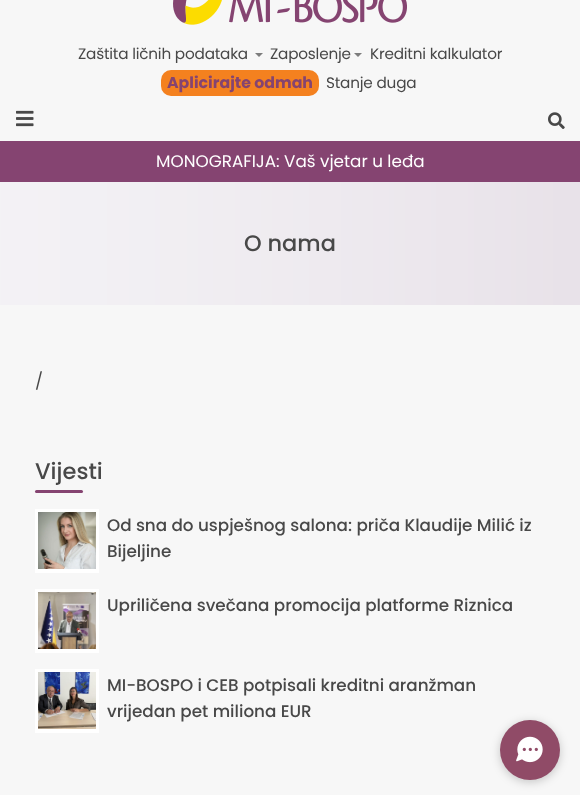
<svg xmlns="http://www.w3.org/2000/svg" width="580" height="795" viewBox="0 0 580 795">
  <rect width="100%" height="100%" fill="#f7f7f7"/>
  <image x="173" y="0" width="234" height="25" href="img/1.png"/>
  <path d="M255 53H263L259 57Z" fill="#7d7d7d"/>
  <path d="M354 53H362L358 57Z" fill="#7d7d7d"/>
  <rect x="161" y="70" width="158" height="26" rx="10" fill="#f4811f"/>
  <image x="16" y="110" width="18" height="17" href="img/2.png"/>
  <image x="548" y="112" width="17" height="17" href="img/3.png"/>
  <path d="M0 141h580v41H0z" fill="#854471"/>
  <image x="0" y="182" width="580" height="123" href="img/4.png"/>
  <rect x="35" y="490" width="48" height="3" rx="1.5" fill="#854471"/>
  <path d="M35 509h64v64H35z" fill="#fff"/>
  <image x="38" y="512" width="58" height="57" href="img/5.png"/>
  <path d="M35 589h64v64H35z" fill="#fff"/>
  <image x="38" y="592" width="58" height="57" href="img/6.png"/>
  <path d="M35 669h64v64H35z" fill="#fff"/>
  <image x="38" y="672" width="58" height="57" href="img/7.png"/>
  <rect x="500" y="722" width="60" height="60" rx="30" fill="#00000033" filter="blur(5px)"/>
  <circle cx="530" cy="750" r="30" fill="#904b67"/>
  <image x="516" y="736" width="27" height="27" href="img/8.png"/>
  <g font-family="Poppins" font-size="15.25" letter-spacing="-0.2" fill="#484848">
    <text x="78" y="59">Zaštita ličnih podataka</text>
    <text x="270" y="59">Zaposlenje</text>
    <text x="370" y="59">Kreditni kalkulator</text>
  </g>
  <text x="167" y="88" font-family="Poppins" font-size="15.75" font-weight="bold" fill="#854470">Aplicirajte odmah</text>
  <text x="326" y="88" font-family="Poppins" font-size="15.25" letter-spacing="-0.2" fill="#484848">Stanje duga</text>
  <text x="156" y="167" font-family="Poppins" font-size="16.8" fill="#fff">MONOGRAFIJA: Vaš vjetar u leđa</text>
  <text x="244" y="251" font-family="Poppins" font-size="22.5" font-weight="500" fill="#484848">O nama</text>
  <text x="35" y="387" font-family="Poppins" font-size="16.8" fill="#484848">/</text>
  <text x="35" y="479" font-family="Poppins" font-size="22.5" font-weight="500" fill="#484848">Vijesti</text>
  <g font-family="Poppins" font-size="16.8" font-weight="500" fill="#484848">
    <text x="107" y="531">Od sna do uspješnog salona: priča Klaudije Milić iz</text>
    <text x="107" y="557">Bijeljine</text>
    <text x="107" y="611">Upriličena svečana promocija platforme Riznica</text>
    <text x="107" y="691">MI-BOSPO i CEB potpisali kreditni aranžman</text>
    <text x="107" y="717">vrijedan pet miliona EUR</text>
  </g>
</svg>
